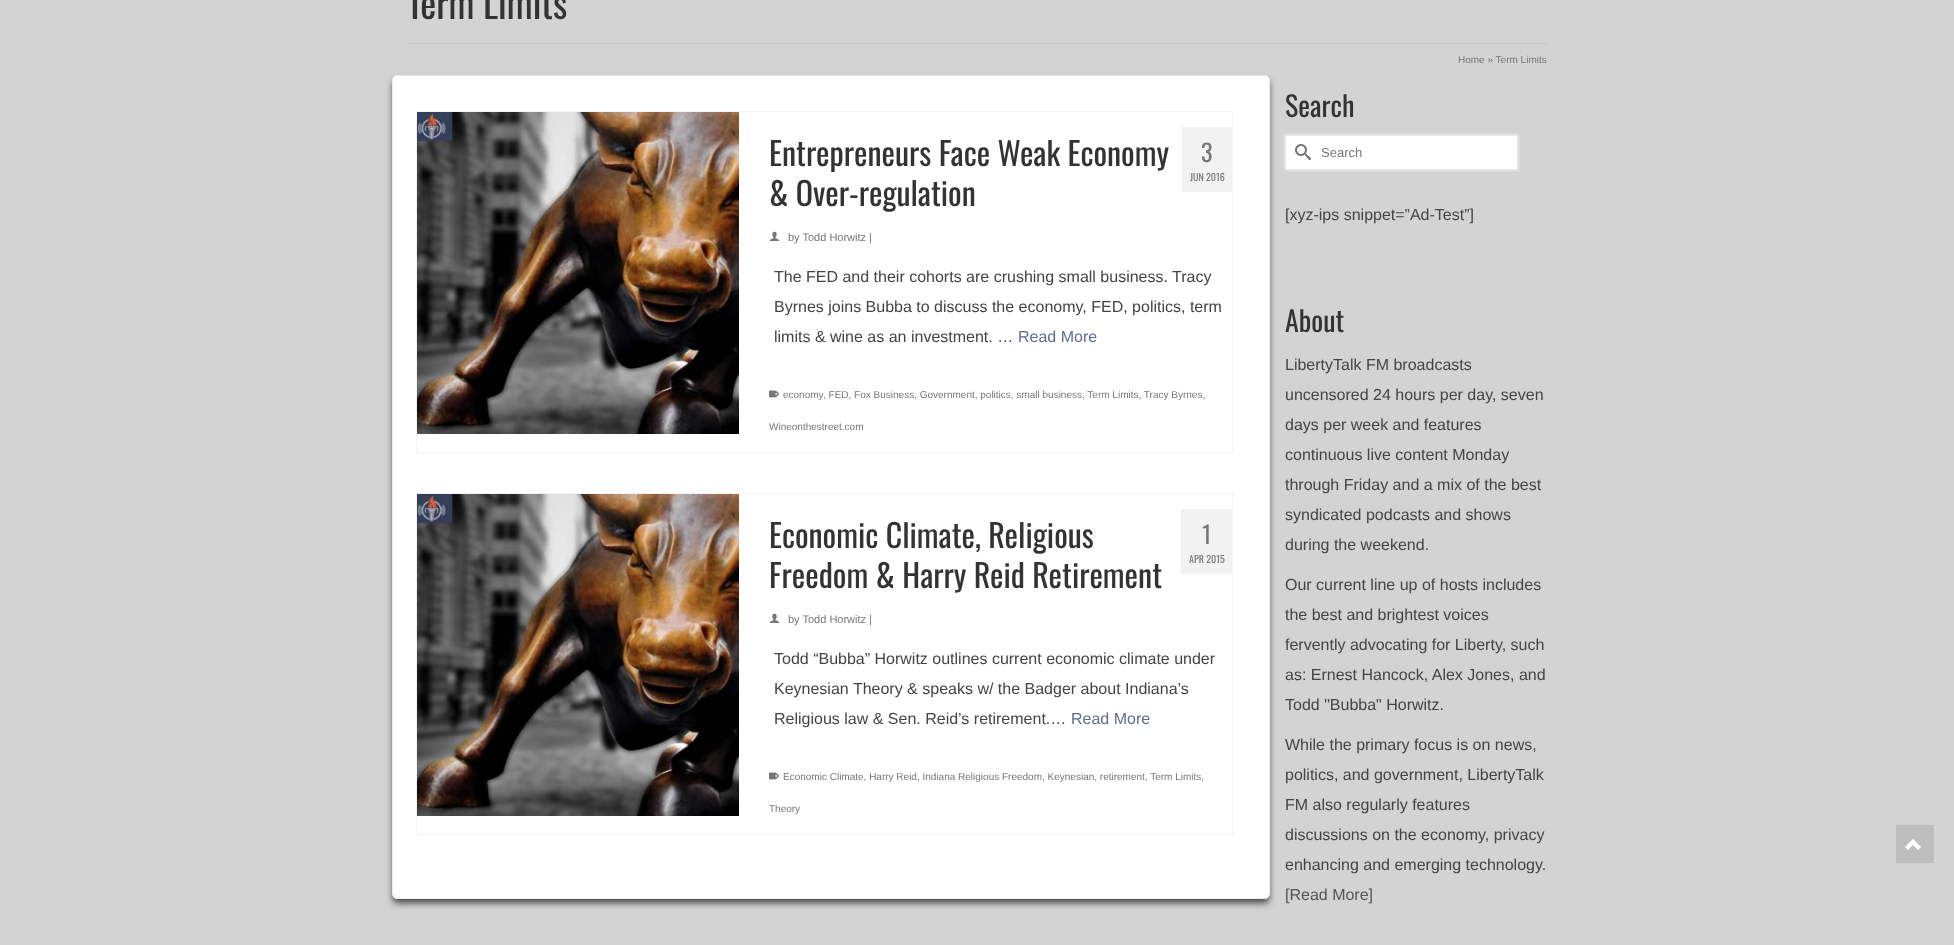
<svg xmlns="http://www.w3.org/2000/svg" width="1954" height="945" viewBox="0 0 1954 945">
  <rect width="100%" height="100%" fill="#d3d3d3"/>
  <path d="M407 43h1140v1H407z" fill="#c8c8c8"/>
  <rect x="393" y="81" width="876" height="822" rx="4" fill="#444" filter="blur(3.5px)"/>
  <rect x="392.5" y="75.5" width="877" height="823" rx="4.5" fill="#fff" stroke="#eaeaea"/>
  <path d="M416.5 111.5h816v341H416.5z" fill="none" stroke="#f2f2f2"/>
  <image x="417" y="112" width="322" height="322" href="img/1.png"/>
  <image x="769" y="231" width="11" height="10" href="img/2.png"/>
  <path d="M1182 127h50v65H1182z" fill="#f2f2f2"/>
  <image x="769" y="390" width="10" height="8" href="img/3.png"/>
  <path d="M416.5 493.5h816v341H416.5z" fill="none" stroke="#f2f2f2"/>
  <image x="417" y="494" width="322" height="322" href="img/1.png"/>
  <image x="769" y="613" width="11" height="10" href="img/2.png"/>
  <path d="M1181 509h51v65H1181z" fill="#f2f2f2"/>
  <image x="769" y="772" width="10" height="8" href="img/3.png"/>
  <path d="M1285 135h233v35H1285z" fill="#fff" filter="blur(1.5px)"/>
  <path d="M1285.5 135.5h232v34H1285.5z" fill="#fff" stroke="#e7e7e7"/>
  <image x="1295" y="144" width="16" height="16" href="img/4.png"/>
  <path d="M1896 825h38v38H1896z" fill="#bebebe"/>
  <image x="1905" y="839" width="16" height="11" href="img/5.png"/>
  <text x="407" y="19" font-family="Oswald" font-size="38" fill="#333">Term Limits</text>
  <text x="1458" y="63" font-family="Liberation Sans" font-size="10" fill="#777">Home » Term Limits</text>
  <g font-family="Oswald" font-size="32" fill="#333">
    <text x="769" y="166">Entrepreneurs Face Weak Economy</text>
    <text x="769" y="206">&amp; Over-regulation</text>
  </g>
  <text x="788" y="241" font-family="Liberation Sans" font-size="11" fill="#777">by Todd Horwitz |</text>
  <text x="1201" y="162" font-family="Oswald" font-size="24" fill="#777">3</text>
  <text x="1190" y="181" font-family="Oswald" font-size="10" fill="#777">JUN 2016</text>
  <g font-family="Liberation Sans" font-size="16" fill="#444">
    <text x="774" y="282">The FED and their cohorts are crushing small business. Tracy</text>
    <text x="774" y="312">Byrnes joins Bubba to discuss the economy, FED, politics, term</text>
    <text x="774" y="342">limits &amp; wine as an investment. …</text>
  </g>
  <text x="1018" y="342" font-family="Liberation Sans" font-size="16" fill="#626c87">Read More</text>
  <g font-family="Liberation Sans" font-size="10" fill="#777">
    <text x="783" y="398">economy</text>
    <text x="823" y="398">, FED, Fox Business, Government, politics, small business, Term Limits, Tracy Byrnes,</text>
    <text x="769" y="430">Wineonthestreet.com</text>
  </g>
  <g font-family="Oswald" font-size="32" fill="#333">
    <text x="769" y="548">Economic Climate, Religious</text>
    <text x="769" y="588">Freedom &amp; Harry Reid Retirement</text>
  </g>
  <text x="788" y="623" font-family="Liberation Sans" font-size="11" fill="#777">by Todd Horwitz |</text>
  <text x="1202" y="544" font-family="Oswald" font-size="24" fill="#777">1</text>
  <text x="1189" y="563" font-family="Oswald" font-size="10" fill="#777">APR 2015</text>
  <g font-family="Liberation Sans" font-size="16" fill="#444">
    <text x="774" y="664">Todd “Bubba” Horwitz outlines current economic climate under</text>
    <text x="774" y="694">Keynesian Theory &amp; speaks w/ the Badger about Indiana’s</text>
    <text x="774" y="724">Religious law &amp; Sen. Reid’s retirement.…</text>
  </g>
  <text x="1071" y="724" font-family="Liberation Sans" font-size="16" fill="#626c87">Read More</text>
  <g font-family="Liberation Sans" font-size="10" fill="#777">
    <text x="783" y="780">Economic Climate, Harry Reid, Indiana Religious Freedom, Keynesian, retirement, Term Limits,</text>
    <text x="769" y="812">Theory</text>
  </g>
  <text x="1285" y="117" font-family="Oswald" font-size="28" fill="#333">Search</text>
  <text x="1321" y="157" font-family="Liberation Sans" font-size="13" fill="#777">Search</text>
  <text x="1285" y="220" font-family="Liberation Sans" font-size="16" fill="#444">[xyz-ips snippet=”Ad-Test”]</text>
  <text x="1285" y="332" font-family="Oswald" font-size="28" fill="#333">About</text>
  <g font-family="Liberation Sans" font-size="16" fill="#444">
    <text x="1285" y="370">LibertyTalk FM broadcasts</text>
    <text x="1285" y="400">uncensored 24 hours per day, seven</text>
    <text x="1285" y="430">days per week and features</text>
    <text x="1285" y="460">continuous live content Monday</text>
    <text x="1285" y="490">through Friday and a mix of the best</text>
    <text x="1285" y="520">syndicated podcasts and shows</text>
    <text x="1285" y="550">during the weekend.</text>
    <text x="1285" y="590">Our current line up of hosts includes</text>
    <text x="1285" y="620">the best and brightest voices</text>
    <text x="1285" y="650">fervently advocating for Liberty, such</text>
    <text x="1285" y="680">as: Ernest Hancock, Alex Jones, and</text>
    <text x="1285" y="710">Todd "Bubba" Horwitz.</text>
    <text x="1285" y="750">While the primary focus is on news,</text>
    <text x="1285" y="780">politics, and government, LibertyTalk</text>
    <text x="1285" y="810">FM also regularly features</text>
    <text x="1285" y="840">discussions on the economy, privacy</text>
    <text x="1285" y="870">enhancing and emerging technology.</text>
  </g>
  <text x="1285" y="900" font-family="Liberation Sans" font-size="16" fill="#555">[Read More]</text>
</svg>
